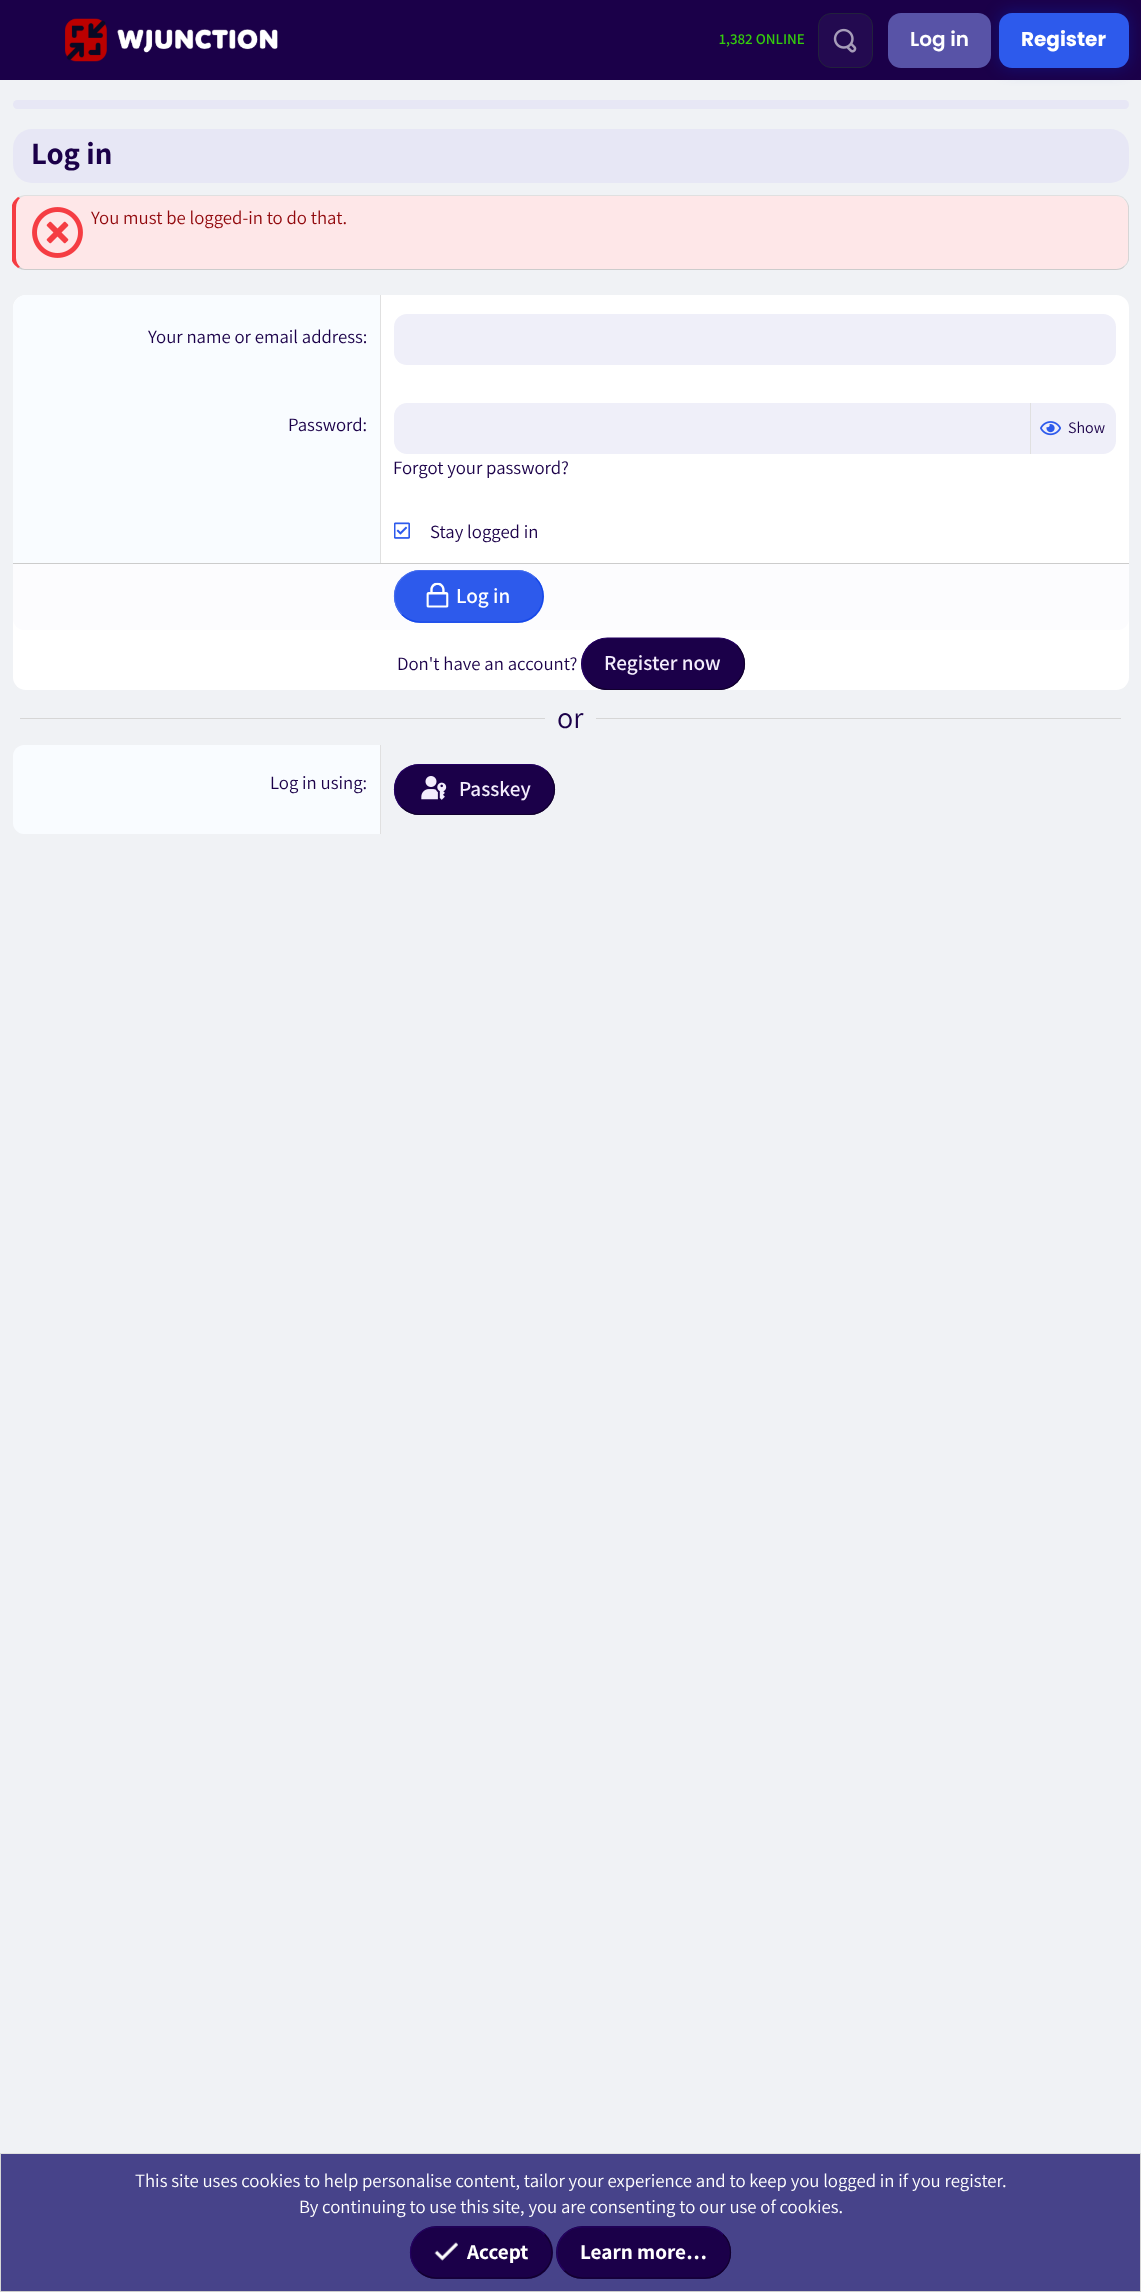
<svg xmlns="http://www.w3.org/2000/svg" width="1141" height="2292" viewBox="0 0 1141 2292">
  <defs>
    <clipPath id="clip1"><rect x="13" y="295" width="1116" height="395" rx="13"/></clipPath>
  </defs>
  <rect width="100%" height="100%" fill="#f0f2f5"/>
  <path d="M0 0h1141v80H0z" fill="#1b0049"/>
  <image x="65" y="18" width="213" height="44" href="img/1.png"/>
  <rect x="818.5" y="13.5" width="54" height="54" rx="12.5" fill="#230a50" stroke="#22223c"/>
  <image x="833" y="28" width="24" height="25" href="img/2.png"/>
  <rect x="998" y="11" width="132" height="58" rx="14" fill="#0031d24f" filter="blur(8px)"/>
  <rect x="888" y="13" width="103" height="55" rx="13" fill="#5853a7"/>
  <rect x="999" y="13" width="130" height="55" rx="13" fill="#2d5aec"/>
  <rect x="13" y="100" width="1116" height="9" rx="4.5" fill="#e7e7f5"/>
  <rect x="13" y="129" width="1116" height="54" rx="19" fill="#e7e7f5"/>
  <path d="M25 196H1116C1122 196 1128 201 1128 208V258C1128 264 1122 269 1116 269H25C20 269 16 264 16 258V208C16 201 20 196 25 196Z" fill="#fee7e8"/>
  <path d="M25 195C23 195 20 196 18 197L20 198C22 197 23 196 25 196H1116C1119 196 1122 197 1124 199H1125C1123 196 1119 195 1116 195Z" fill="#e0e0e0"/>
  <path d="M1129 260C1128 262 1127 265 1125 266H1124C1127 264 1128 261 1128 258V208C1128 205 1127 202 1124 199H1125C1127 201 1128 203 1129 206Z" fill="#d6d6d6"/>
  <path d="M25 270H1116C1119 270 1123 269 1125 266H1124C1122 268 1119 269 1116 269H25C23 269 22 268 20 267L18 268C20 269 23 270 25 270Z" fill="#ccc"/>
  <path d="M12 205C13 201 16 199 18 197L20 198C18 200 16 203 16 208V258C16 262 18 265 20 267L18 268C16 266 13 264 12 261Z" fill="#f53d43"/>
  <image x="32" y="207" width="51" height="51" href="img/3.png"/>
  <rect x="13" y="295" width="1116" height="395" rx="13" fill="#fff"/>
  <path d="M26 295H381V384H13V308C13 301 19 295 26 295Z" fill="#f9fcff"/>
  <path d="M380 295h1v268H380z" fill="#e0e0e0"/>
  <rect x="394" y="314" width="722" height="51" rx="13" fill="#efeff9"/>
  <path d="M13 384h367v179H13z" fill="#f9fcff"/>
  <path d="M407 403H1030V454H407C400 454 394 448 394 441V416C394 409 400 403 407 403Z" fill="#efeff9"/>
  <path d="M1031 403H1103C1110 403 1116 409 1116 416V441C1116 448 1110 454 1103 454H1031Z" fill="#efeff9"/>
  <path d="M1030 403h1v51H1030z" fill="#e0e0e0"/>
  <image x="1040" y="421" width="21" height="15" href="img/4.png"/>
  <image x="394" y="522" width="16" height="17" href="img/5.png"/>
  <path d="M13 563H1129V619C1129 625 1124 630 1118 630H24C18 630 13 625 13 619Z" fill="#fcfcfe"/>
  <path d="M13 563h1116v1H13z" fill="#ccc"/>
  <rect x="394" y="570" width="150" height="53" rx="26.5" fill="#2d5aec"/>
  <path d="M535.5 578C540.5 583 543 589.5 543 596C543 603 540.5 609.5 535.5 614.5C531 619 524.5 622 517.5 622H420C413 622 406.5 619 402 614.5" fill="none" stroke="#1648ea" stroke-width="1.2"/>
  <path d="M402 614.5C397 609.5 394.5 603 394.5 596C394.5 589.5 397 583 402 578C406.5 573.5 413 570.5 420 570.5H517.5C524.5 570.5 531 573.5 535.5 578" fill="none" stroke="#446cee" stroke-width="1.2"/>
  <image x="426" y="582" width="23" height="26" href="img/6.png"/>
  <rect x="581" y="638" width="164" height="52" rx="26" fill="#1b0049"/>
  <g clip-path="url(#clip1)">
    <path d="M737 645.5C741.5 650.5 744.5 657 744.5 664C744.5 670.5 741.5 677 737 682C732 686.5 725.5 689.5 719 689.5H607.5C600.5 689.5 594 686.5 589.5 682" fill="none" stroke="#12002f" stroke-width="1.2"/>
  </g>
  <path d="M589.5 682C584.5 677 582 670.5 582 664C582 657 584.5 650.5 589.5 645.5C594 641 600.5 638 607.5 638H719C725.5 638 732 641 737 645.5" fill="none" stroke="#240062" stroke-width="1.2"/>
  <path d="M20 718h525v1H20z" fill="#d6d6d6"/>
  <path d="M596 718h525v1H596z" fill="#d6d6d6"/>
  <path d="M24 745H381V834H24C18 834 13 829 13 823V756C13 750 18 745 24 745Z" fill="#f9fcff"/>
  <path d="M380 745h1v89H380z" fill="#e0e0e0"/>
  <rect x="394" y="764" width="161" height="51" rx="25.5" fill="#1b0049"/>
  <path d="M547 771.5C551.5 776.5 554.5 782.5 554.5 789.5C554.5 796 551.5 802.5 547 807C542.5 811.5 536 814.5 529.5 814.5H419.5C412.5 814.5 406.5 811.5 401.5 807" fill="none" stroke="#12002f" stroke-width="1.2"/>
  <path d="M401.5 807C397 802.5 394.5 796 394.5 789.5C394.5 782.5 397 776.5 401.5 771.5C406.5 767 412.5 764.5 419.5 764.5H529.5C536 764.5 542.5 767 547 771.5" fill="none" stroke="#240062" stroke-width="1.2"/>
  <image x="421" y="776" width="26" height="24" href="img/7.png"/>
  <path d="M1 2154h1139v137H1z" fill="#47438a"/>
  <path d="M0 2153h1141v1H0z" fill="#e0e0e0"/>
  <path d="M1140 2153h1v139H1140z" fill="#d6d6d6"/>
  <path d="M0 2291h1141v1H0z" fill="#ccc"/>
  <path d="M0 2153h1v139H0z" fill="#d6d6d6"/>
  <rect x="410" y="2226" width="143" height="53" rx="26.5" fill="#1b0049"/>
  <path d="M544.5 2234.5C549 2239 552 2245.5 552 2252.5C552 2259.5 549 2266 544.5 2270.5C539.5 2275.5 533 2278 526 2278H436C429.5 2278 423 2275.5 418 2270.5" fill="none" stroke="#12002f" stroke-width="1.2"/>
  <path d="M418 2270.5C413.5 2266 410.5 2259.5 410.5 2252.5C410.5 2245.5 413.5 2239 418 2234.5C423 2229.5 429.5 2227 436 2227H526C533 2227 539.5 2229.5 544.5 2234.5" fill="none" stroke="#240062" stroke-width="1.2"/>
  <image x="434" y="2242" width="24" height="19" href="img/8.png"/>
  <rect x="556" y="2226" width="175" height="53" rx="26.5" fill="#1b0049"/>
  <path d="M723 2234.5C728 2239 730.5 2245.5 730.5 2252.5C730.5 2259.5 728 2266 723 2270.5C718.5 2275.5 712 2278 705 2278H582.5C575.5 2278 569 2275.5 564.5 2270.5" fill="none" stroke="#12002f" stroke-width="1.2"/>
  <path d="M564.5 2270.5C559.5 2266 557 2259.5 557 2252.5C557 2245.5 559.5 2239 564.5 2234.5C569 2229.5 575.5 2227 582.5 2227H705C712 2227 718.5 2229.5 723 2234.5" fill="none" stroke="#240062" stroke-width="1.2"/>
  <text x="719" y="44" font-family="Assistant" font-size="15" font-weight="600" fill="#35cb0d">1,382 ONLINE</text>
  <text x="910" y="46" font-family="Poppins" font-size="20" font-weight="600" fill="#fff">Log in</text>
  <text x="1021" y="46" font-family="Poppins" font-size="20" font-weight="bold" fill="#fff">Register</text>
  <text x="31" y="164" font-family="Assistant" font-size="31" font-weight="bold" fill="#1b0049">Log in</text>
  <text x="91" y="224" font-family="Assistant" font-size="18.75" fill="#91080c">You must be logged-in to do that.</text>
  <g font-family="Assistant" font-size="18.75" fill="#1b0049">
    <text x="148" y="343">Your name or email address:</text>
    <text x="288" y="431">Password:</text>
  </g>
  <text x="1068" y="433" font-family="Assistant" font-size="16" fill="#1b0049">Show</text>
  <g font-family="Assistant" font-size="18.75" fill="#1b0049">
    <text x="393" y="474">Forgot your password?</text>
    <text x="430" y="538">Stay logged in</text>
  </g>
  <text x="456" y="603" font-family="Assistant" font-size="21.25" font-weight="600" fill="#fff">Log in</text>
  <text x="397" y="670" font-family="Assistant" font-size="18.75" fill="#1b0049">Don't have an account?</text>
  <text x="604" y="670" font-family="Assistant" font-size="21.25" font-weight="600" fill="#f4edfd">Register now</text>
  <text x="557" y="728" font-family="Assistant" font-size="30" fill="#1b0049">or</text>
  <text x="270" y="789" font-family="Assistant" font-size="18.75" fill="#1b0049">Log in using:</text>
  <text x="459" y="796" font-family="Assistant" font-size="21.25" font-weight="600" fill="#f4edfd">Passkey</text>
  <g font-family="Assistant" font-size="18.75" fill="#fff">
    <text x="135" y="2187">This site uses cookies to help personalise content, tailor your experience and to keep you logged in if you register.</text>
    <text x="299" y="2213">By continuing to use this site, you are consenting to our use of cookies.</text>
  </g>
  <g font-family="Assistant" font-size="21.25" font-weight="bold" fill="#fff">
    <text x="467" y="2259">Accept</text>
    <text x="580" y="2259">Learn more…</text>
  </g>
</svg>
